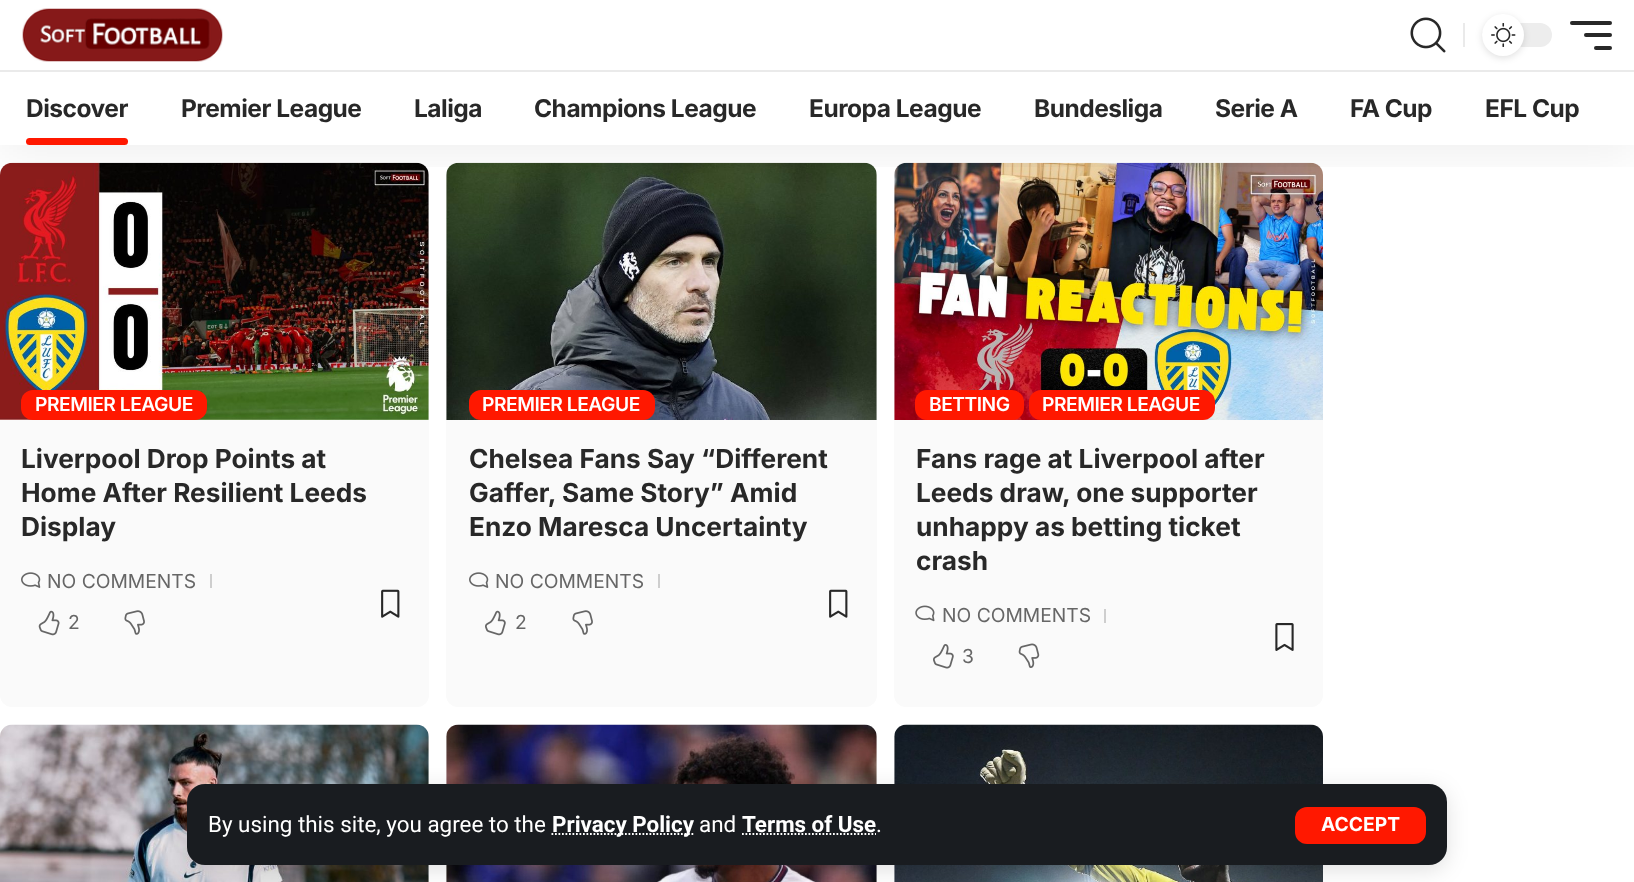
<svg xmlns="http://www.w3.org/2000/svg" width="1634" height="882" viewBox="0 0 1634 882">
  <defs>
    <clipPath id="clip1"><path d="M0 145h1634v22H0z"/></clipPath>
  </defs>
  <rect width="100%" height="100%" fill="#fff"/>
  <rect y="163" width="429" height="544" rx="12" fill="#fafafa"/>
  <image x="0" y="162" width="429" height="258" href="img/4.png"/>
  <rect x="446" y="163" width="431" height="544" rx="12" fill="#fafafa"/>
  <image x="446" y="162" width="431" height="258" href="img/9.png"/>
  <rect x="894" y="163" width="429" height="544" rx="12" fill="#fafafa"/>
  <image x="894" y="162" width="429" height="258" href="img/11.png"/>
  <g clip-path="url(#clip1)">
    <path d="M0 7h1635v145H0z" fill="#00000012" filter="blur(26px)"/>
  </g>
  <image x="22" y="8" width="201" height="54" href="img/1.png"/>
  <image x="1410" y="17" width="36" height="36" href="img/2.png"/>
  <path d="M1463 23h2v24H1463z" fill="#eaeaea"/>
  <rect x="1482" y="23" width="70" height="24" rx="12" fill="#ededed"/>
  <rect x="1482" y="16" width="42" height="42" rx="21" fill="#0000001f" filter="blur(3.5px)"/>
  <circle cx="1503" cy="35" r="21" fill="#fff"/>
  <image x="1491" y="23" width="25" height="24" href="img/3.png"/>
  <rect x="1570" y="21" width="42" height="4" rx="2" fill="#282828"/>
  <rect x="1584" y="33" width="28" height="4" rx="2" fill="#282828"/>
  <rect x="1594" y="46" width="18" height="4" rx="2" fill="#282828"/>
  <path d="M0 70h1634v2H0z" fill="#eaeaea"/>
  <rect x="26" y="138" width="102" height="7" rx="3.5" fill="#ff1800"/>
  <rect y="725" width="429" height="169" rx="12" fill="#fafafa"/>
  <image x="0" y="724" width="429" height="158" href="img/16.png"/>
  <rect x="446" y="725" width="431" height="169" rx="12" fill="#fafafa"/>
  <image x="446" y="724" width="431" height="158" href="img/17.png"/>
  <rect x="894" y="725" width="429" height="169" rx="12" fill="#fafafa"/>
  <image x="894" y="724" width="429" height="158" href="img/18.png"/>
  <rect x="187" y="789" width="1260" height="81" rx="18" fill="#0000001f" filter="blur(10.5px)"/>
  <rect x="187" y="784" width="1260" height="81" rx="18" fill="#191c20"/>
  <path d="M551.5 834H693.5" fill="none" stroke="#fff" stroke-width="1.8" stroke-dasharray="1.75 1.75"/>
  <path d="M742 834H876" fill="none" stroke="#fff" stroke-width="1.8" stroke-dasharray="1.75 1.75"/>
  <rect x="1295" y="807" width="131" height="37" rx="12" fill="#ff1800"/>
  <rect x="21" y="390" width="186" height="30" rx="12" fill="#ff1800"/>
  <image x="21" y="572" width="20" height="16" href="img/5.png"/>
  <path d="M210 574h2v14H210z" fill="#cecece"/>
  <image x="38" y="610" width="22" height="26" href="img/6.png"/>
  <image x="124" y="610" width="21" height="25" href="img/7.png"/>
  <image x="381" y="589" width="19" height="29" href="img/8.png"/>
  <rect x="469" y="390" width="186" height="30" rx="12" fill="#ff1800"/>
  <image x="469" y="572" width="20" height="16" href="img/5.png"/>
  <path d="M658 574h2v14H658z" fill="#cecece"/>
  <image x="485" y="610" width="21" height="26" href="img/10.png"/>
  <image x="572" y="610" width="21" height="25" href="img/7.png"/>
  <image x="829" y="589" width="19" height="29" href="img/8.png"/>
  <rect x="915" y="390" width="109" height="30" rx="12" fill="#ff1800"/>
  <rect x="1029" y="390" width="186" height="30" rx="12" fill="#ff1800"/>
  <image x="915" y="605" width="20" height="17" href="img/12.png"/>
  <path d="M1104 609h2v14H1104z" fill="#cecece"/>
  <image x="933" y="644" width="21" height="25" href="img/13.png"/>
  <image x="1018" y="643" width="22" height="25" href="img/14.png"/>
  <image x="1275" y="623" width="19" height="28" href="img/15.png"/>
  <g font-family="Inter" font-size="24.5" font-weight="bold" letter-spacing="-0.5" fill="#282828">
    <text x="26" y="117">Discover</text>
    <text x="181" y="117">Premier League</text>
    <text x="414" y="117">Laliga</text>
    <text x="534" y="117">Champions League</text>
    <text x="809" y="117">Europa League</text>
    <text x="1034" y="117">Bundesliga</text>
    <text x="1215" y="117">Serie A</text>
    <text x="1350" y="117">FA Cup</text>
    <text x="1485" y="117">EFL Cup</text>
  </g>
  <text x="208" y="832" font-family="Roboto" font-size="22.4" fill="#fff">By using this site, you agree to the</text>
  <text x="552" y="832" font-family="Roboto" font-size="22.4" font-weight="bold" fill="#fff">Privacy Policy</text>
  <text x="699" y="832" font-family="Roboto" font-size="22.4" fill="#fff">and</text>
  <text x="742" y="832" font-family="Roboto" font-size="22.4" font-weight="bold" fill="#fff">Terms of Use</text>
  <text x="876" y="832" font-family="Roboto" font-size="22.4" fill="#fff">.</text>
  <text x="1321" y="831" font-family="Inter" font-size="19.25" font-weight="bold" fill="#fff">ACCEPT</text>
  <text x="35" y="411" font-family="Inter" font-size="19.25" font-weight="600" letter-spacing="-0.5" fill="#fff">PREMIER LEAGUE</text>
  <g font-family="Inter" font-size="26.25" font-weight="bold" fill="#282828">
    <text x="21" y="468">Liverpool Drop Points at</text>
    <text x="21" y="502">Home After Resilient Leeds</text>
    <text x="21" y="536">Display</text>
  </g>
  <g font-family="Inter" font-size="19.25" fill="#666">
    <text x="47" y="588">NO COMMENTS</text>
    <text x="68" y="629">2</text>
  </g>
  <text x="482" y="411" font-family="Inter" font-size="19.25" font-weight="600" letter-spacing="-0.5" fill="#fff">PREMIER LEAGUE</text>
  <g font-family="Inter" font-size="26.25" font-weight="bold" fill="#282828">
    <text x="469" y="468">Chelsea Fans Say “Different</text>
    <text x="469" y="502">Gaffer, Same Story” Amid</text>
    <text x="469" y="536">Enzo Maresca Uncertainty</text>
  </g>
  <g font-family="Inter" font-size="19.25" fill="#666">
    <text x="495" y="588">NO COMMENTS</text>
    <text x="515" y="629">2</text>
  </g>
  <g font-family="Inter" font-size="19.25" font-weight="600" letter-spacing="-0.5" fill="#fff">
    <text x="929" y="411">BETTING</text>
    <text x="1042" y="411">PREMIER LEAGUE</text>
  </g>
  <g font-family="Inter" font-size="26.25" font-weight="bold" fill="#282828">
    <text x="916" y="468">Fans rage at Liverpool after</text>
    <text x="916" y="502">Leeds draw, one supporter</text>
    <text x="916" y="536">unhappy as betting ticket</text>
    <text x="916" y="570">crash</text>
  </g>
  <g font-family="Inter" font-size="19.25" fill="#666">
    <text x="942" y="622">NO COMMENTS</text>
    <text x="962" y="663">3</text>
  </g>
</svg>
